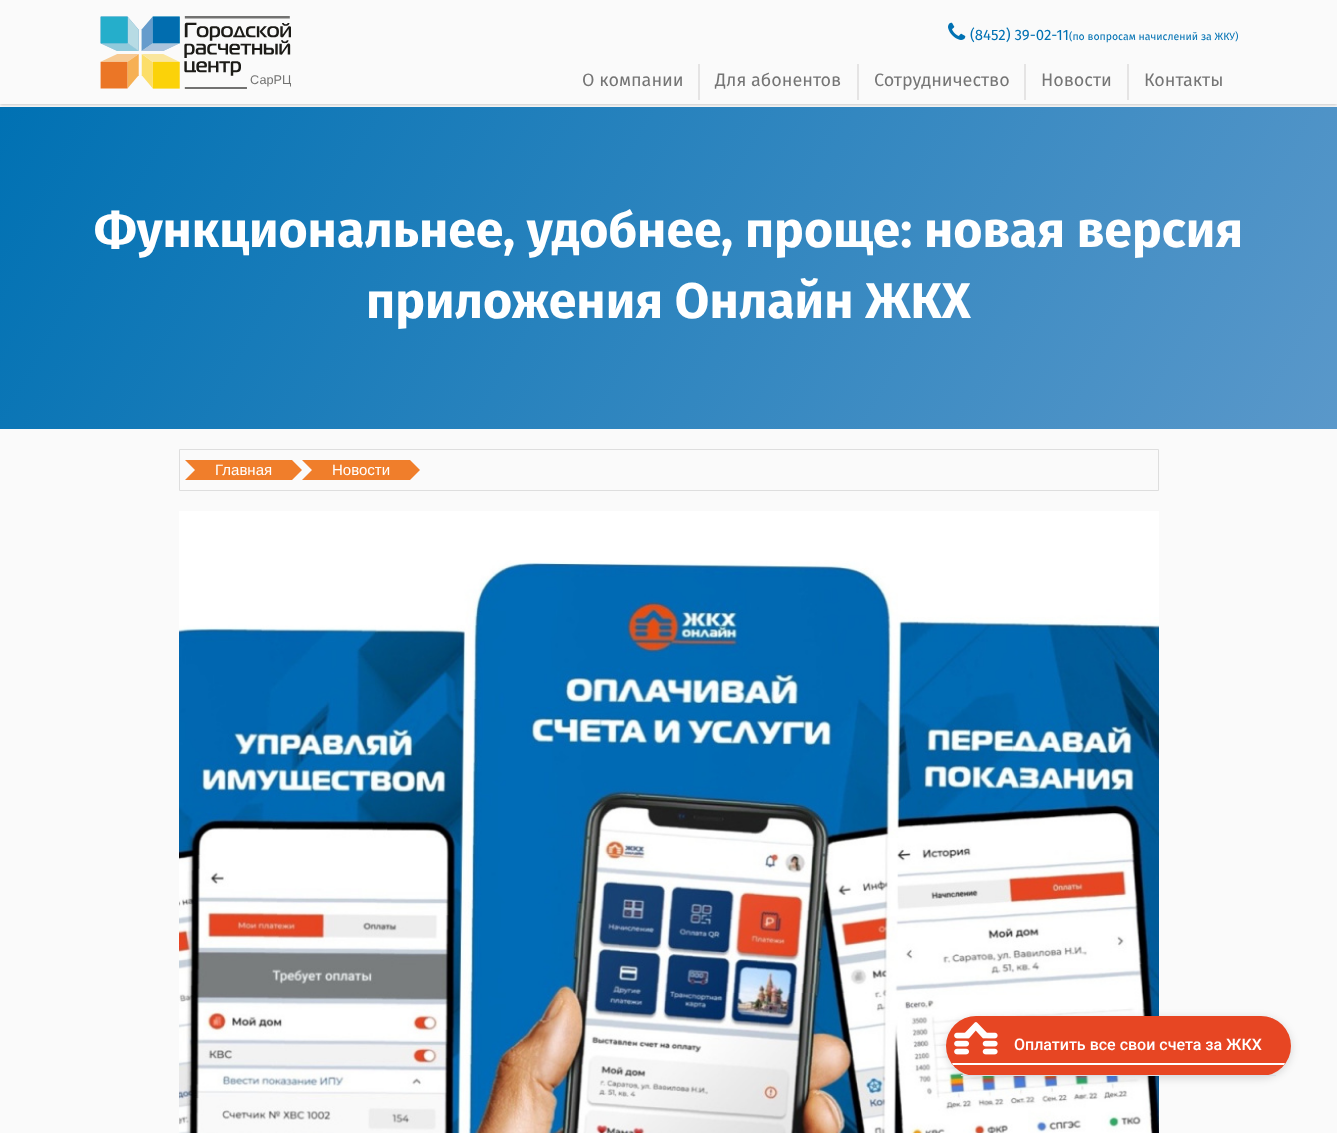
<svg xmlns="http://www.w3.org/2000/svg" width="1337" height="1133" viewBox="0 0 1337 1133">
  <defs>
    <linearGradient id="g1" gradientUnits="userSpaceOnUse" x1="97" y1="-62" x2="1240" y2="598"><stop offset="0" stop-color="#0071b3"/><stop offset="1" stop-color="#5a98ca"/></linearGradient>
    <clipPath id="clip1"><path d="M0 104h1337v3H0z"/></clipPath>
  </defs>
  <rect width="100%" height="100%" fill="#fafafa"/>
  <path d="M0 107h1337v322H0z" fill="url(#g1)"/>
  <g clip-path="url(#clip1)">
    <path d="M0 1h1337v104H0z" fill="#00000033" filter="blur(1.5px)"/>
  </g>
  <image x="100" y="16" width="191" height="73" href="img/1.png"/>
  <image x="948" y="22" width="18" height="18" href="img/2.png"/>
  <path d="M698 64h2v36H698z" fill="#e5e4e4"/>
  <path d="M857 64h2v36H857z" fill="#e5e4e4"/>
  <path d="M1024 64h2v36H1024z" fill="#e5e4e4"/>
  <path d="M1127 64h2v36H1127z" fill="#e5e4e4"/>
  <path d="M179.5 449.5h979v41H179.5z" fill="none" stroke="#dedede"/>
  <path d="M185 460H205L195 470Z" fill="#f07e2b"/>
  <path d="M195 460h97v20H195z" fill="#f07e2b"/>
  <path d="M205 480H185L195 470Z" fill="#f07e2b"/>
  <path d="M292 480V460L302 470ZM302 460H322L312 470Z" fill="#f07e2b"/>
  <path d="M312 460h98v20H312z" fill="#f07e2b"/>
  <path d="M322 480H302L312 470Z" fill="#f07e2b"/>
  <path d="M410 480V460L420 470Z" fill="#f07e2b"/>
  <image x="179" y="511" width="980" height="622" href="img/3.png"/>
  <rect x="946" y="1018" width="345" height="60" rx="30" fill="#00000026" filter="blur(4px)"/>
  <rect x="946" y="1016" width="345" height="60" rx="30" fill="#e74623"/>
  <path d="M961 1075h315v1H961z" fill="#d9e1e9"/>
  <image x="954" y="1022" width="44" height="33" href="img/4.png"/>
  <path d="M953 1065L952 1063H1285L1284 1065Z" fill="#fff"/>
  <text x="970" y="40" font-family="Fira Sans" font-size="15" fill="#0071b3">(8452) 39-02-11</text>
  <text x="1069" y="40" font-family="Fira Sans" font-size="10.5" fill="#0071b3">(по вопросам начислений за ЖКУ)</text>
  <g font-family="Fira Sans" font-size="18" fill="#757575">
    <text x="582" y="86">О компании</text>
    <text x="715" y="86">Для абонентов</text>
    <text x="874" y="86">Сотрудничество</text>
    <text x="1041" y="86">Новости</text>
    <text x="1144" y="86">Контакты</text>
  </g>
  <g font-family="Fira Sans" font-size="50" font-weight="bold" fill="#fff">
    <text x="94" y="247">Функциональнее, удобнее, проще: новая версия</text>
    <text x="366" y="318">приложения Онлайн ЖКХ</text>
  </g>
  <g font-family="Liberation Sans" font-size="15" fill="#fff">
    <text x="215" y="475">Главная</text>
    <text x="332" y="475">Новости</text>
  </g>
  <text x="1014" y="1050" font-family="Roboto" font-size="16" font-weight="500" fill="#fff">Оплатить все свои счета за ЖКХ</text>
</svg>
